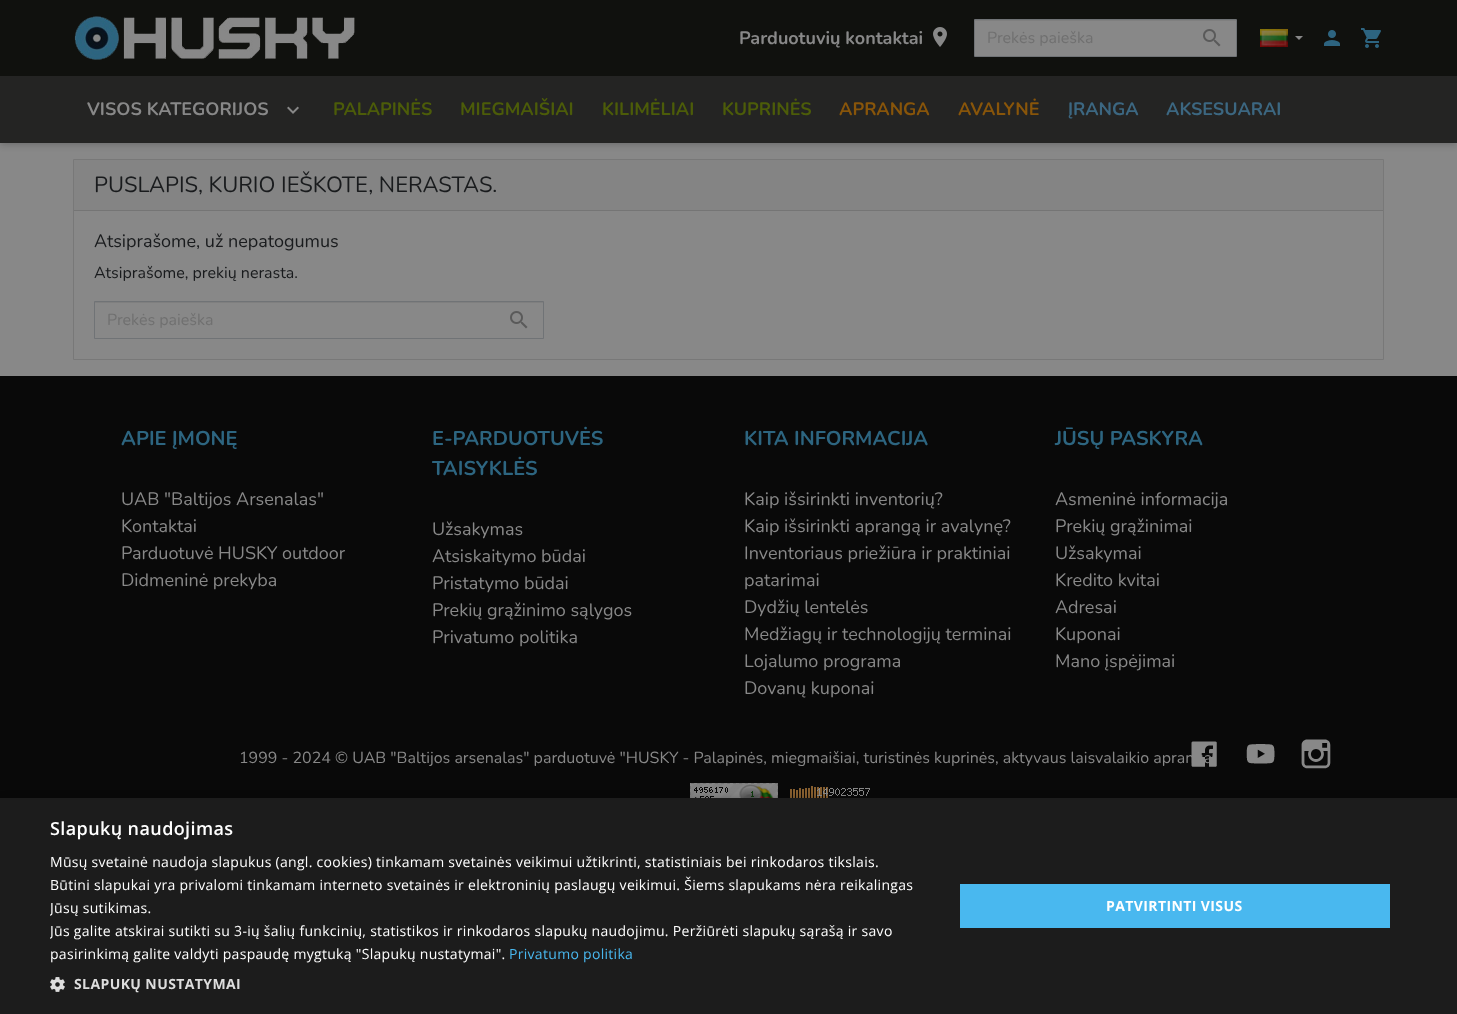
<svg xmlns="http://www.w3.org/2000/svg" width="1457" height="1014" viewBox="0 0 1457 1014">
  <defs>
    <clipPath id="clip1"><path d="M50 850h876v115H50z"/></clipPath>
  </defs>
  <rect width="100%" height="100%" fill="#888"/>
  <path d="M0 2h1457v143H0z" fill="#09090933" filter="blur(3px)"/>
  <path d="M0 0h1457v76H0z" fill="#10110e"/>
  <image x="74" y="16" width="281" height="44" href="img/1.png"/>
  <image x="933" y="27" width="14" height="20" href="img/2.png"/>
  <path d="M975 21h261v35H975z" fill="#888"/>
  <path d="M975 20h261v1H975z" fill="#7f7f7f"/>
  <path d="M974.5 19.5h262v37H974.5z" fill="none" stroke="#707376"/>
  <image x="1203" y="29" width="18" height="18" href="img/3.png"/>
  <image x="1260" y="29" width="28" height="18" href="img/4.png"/>
  <path d="M1295 36H1303L1299 40Z" fill="#888"/>
  <image x="1324" y="30" width="16" height="16" href="img/5.png"/>
  <image x="1361" y="28" width="20" height="20" href="img/6.png"/>
  <path d="M0 76h1457v67H0z" fill="#242423"/>
  <image x="287" y="106" width="12" height="8" href="img/7.png"/>
  <path d="M73.5 159.5h1310v200H73.5z" fill="none" stroke="#787878"/>
  <path d="M74 160h1309v50H74z" fill="#848484"/>
  <path d="M74 210h1309v1H74z" fill="#757575"/>
  <path d="M95 302h448v1H95z" fill="#7f7f7f"/>
  <path d="M94.5 301.5h449v37H94.5z" fill="none" stroke="#707376"/>
  <image x="510" y="311" width="18" height="18" href="img/3.png"/>
  <path d="M0 376h1457v422H0z" fill="#090909"/>
  <image x="1246" y="744" width="29" height="20" href="img/9.png"/>
  <image x="1301" y="739" width="30" height="30" href="img/10.png"/>
  <image x="690" y="783" width="88" height="15" href="img/11.png"/>
  <image x="790" y="786" width="80" height="12" href="img/12.png"/>
  <path d="M1 800h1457v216H1z" fill="#00000059" filter="blur(4px)"/>
  <path d="M0 798h1457v216H0z" fill="#1c1c1c"/>
  <image x="50" y="977" width="15" height="15" href="img/13.png"/>
  <path d="M960 884h430v44H960z" fill="#49b8ef"/>
  <text x="739" y="44" font-family="Nunito" font-size="18" font-weight="bold" fill="#888">Parduotuvių kontaktai</text>
  <text x="987" y="43" font-family="Nunito" font-size="16" fill="#707070">Prekės paieška</text>
  <text x="87" y="115" font-family="Nunito" font-size="18" font-weight="bold" fill="#888">VISOS KATEGORIJOS</text>
  <g font-family="Nunito" font-size="18" font-weight="bold" fill="#4c5c09">
    <text x="333" y="115">PALAPINĖS</text>
    <text x="460" y="115">MIEGMAIŠIAI</text>
    <text x="602" y="115">KILIMĖLIAI</text>
    <text x="722" y="115">KUPRINĖS</text>
  </g>
  <g font-family="Nunito" font-size="18" font-weight="bold" fill="#88550a">
    <text x="839" y="115">APRANGA</text>
    <text x="958" y="115">AVALYNĖ</text>
  </g>
  <g font-family="Nunito" font-size="18" font-weight="bold" fill="#3c6781">
    <text x="1068" y="115">ĮRANGA</text>
    <text x="1166" y="115">AKSESUARAI</text>
  </g>
  <text x="94" y="192" font-family="Nunito" font-size="22" fill="#191b1d">PUSLAPIS, KURIO IEŠKOTE, NERASTAS.</text>
  <text x="94" y="247" font-family="Nunito" font-size="18" fill="#191b1d">Atsiprašome, už nepatogumus</text>
  <text x="94" y="278" font-family="Nunito" font-size="16" fill="#191b1d">Atsiprašome, prekių nerasta.</text>
  <text x="107" y="325" font-family="Nunito" font-size="16" fill="#707070">Prekės paieška</text>
  <text x="121" y="445" font-family="Nunito" font-size="20" font-weight="bold" fill="#2d6580">APIE ĮMONĘ</text>
  <g font-family="Nunito" font-size="18" fill="#888">
    <text x="121" y="505">UAB "Baltijos Arsenalas"</text>
    <text x="121" y="532">Kontaktai</text>
    <text x="121" y="559">Parduotuvė HUSKY outdoor</text>
    <text x="121" y="586">Didmeninė prekyba</text>
  </g>
  <g font-family="Nunito" font-size="20" font-weight="bold" fill="#2d6580">
    <text x="432" y="445">E-PARDUOTUVĖS</text>
    <text x="432" y="475">TAISYKLĖS</text>
  </g>
  <g font-family="Nunito" font-size="18" fill="#888">
    <text x="432" y="535">Užsakymas</text>
    <text x="432" y="562">Atsiskaitymo būdai</text>
    <text x="432" y="589">Pristatymo būdai</text>
    <text x="432" y="616">Prekių grąžinimo sąlygos</text>
    <text x="432" y="643">Privatumo politika</text>
  </g>
  <text x="744" y="445" font-family="Nunito" font-size="20" font-weight="bold" fill="#2d6580">KITA INFORMACIJA</text>
  <g font-family="Nunito" font-size="18" fill="#888">
    <text x="744" y="505">Kaip išsirinkti inventorių?</text>
    <text x="744" y="532">Kaip išsirinkti aprangą ir avalynę?</text>
    <text x="744" y="559">Inventoriaus priežiūra ir praktiniai</text>
    <text x="744" y="586">patarimai</text>
    <text x="744" y="613">Dydžių lentelės</text>
    <text x="744" y="640">Medžiagų ir technologijų terminai</text>
    <text x="744" y="667">Lojalumo programa</text>
    <text x="744" y="694">Dovanų kuponai</text>
  </g>
  <text x="1055" y="445" font-family="Nunito" font-size="20" font-weight="bold" fill="#2d6580">JŪSŲ PASKYRA</text>
  <g font-family="Nunito" font-size="18" fill="#888">
    <text x="1055" y="505">Asmeninė informacija</text>
    <text x="1055" y="532">Prekių grąžinimai</text>
    <text x="1055" y="559">Užsakymai</text>
    <text x="1055" y="586">Kredito kvitai</text>
    <text x="1055" y="613">Adresai</text>
    <text x="1055" y="640">Kuponai</text>
    <text x="1055" y="667">Mano įspėjimai</text>
  </g>
  <text x="239" y="763" font-family="Nunito" font-size="16" fill="#888">1999 - 2024 © UAB "Baltijos arsenalas" parduotuvė "HUSKY - Palapinės, miegmaišiai, turistinės kuprinės, aktyvaus laisvalaikio apranga</text>
  <image x="1191" y="741" width="26" height="26" href="img/8.png"/>
  <text x="50" y="835" font-family="Open Sans" font-size="18" font-weight="600" letter-spacing="0.4" fill="#fff">Slapukų naudojimas</text>
  <g font-family="Open Sans" font-size="14" letter-spacing="0.3" fill="#fff">
    <text x="50" y="867">Mūsų svetainė naudoja slapukus (angl. cookies) tinkamam svetainės veikimui užtikrinti, statistiniais bei rinkodaros tikslais.</text>
    <text x="50" y="890">Būtini slapukai yra privalomi tinkamam interneto svetainės ir elektroninių paslaugų veikimui. Šiems slapukams nėra reikalingas</text>
  </g>
  <g clip-path="url(#clip1)">
    <g font-family="Open Sans" font-size="14" letter-spacing="0.3" fill="#fff">
      <text x="50" y="913">Jūsų sutikimas.</text>
      <text x="50" y="936">Jūs galite atskirai sutikti su 3-ių šalių funkcinių, statistikos ir rinkodaros slapukų naudojimu. Peržiūrėti slapukų sąrašą ir savo</text>
    </g>
  </g>
  <text x="50" y="959" font-family="Open Sans" font-size="14" letter-spacing="0.3" fill="#fff">pasirinkimą galite valdyti paspaudę mygtuką "Slapukų nustatymai".</text>
  <text x="509" y="959" font-family="Open Sans" font-size="14" letter-spacing="0.3" fill="#49b8ef">Privatumo politika</text>
  <text x="74" y="989" font-family="Open Sans" font-size="14" font-weight="bold" letter-spacing="0.4" fill="#ddd">SLAPUKŲ NUSTATYMAI</text>
  <text x="1106" y="911" font-family="Open Sans" font-size="14" font-weight="bold" letter-spacing="0.4" fill="#fff">PATVIRTINTI VISUS</text>
</svg>
